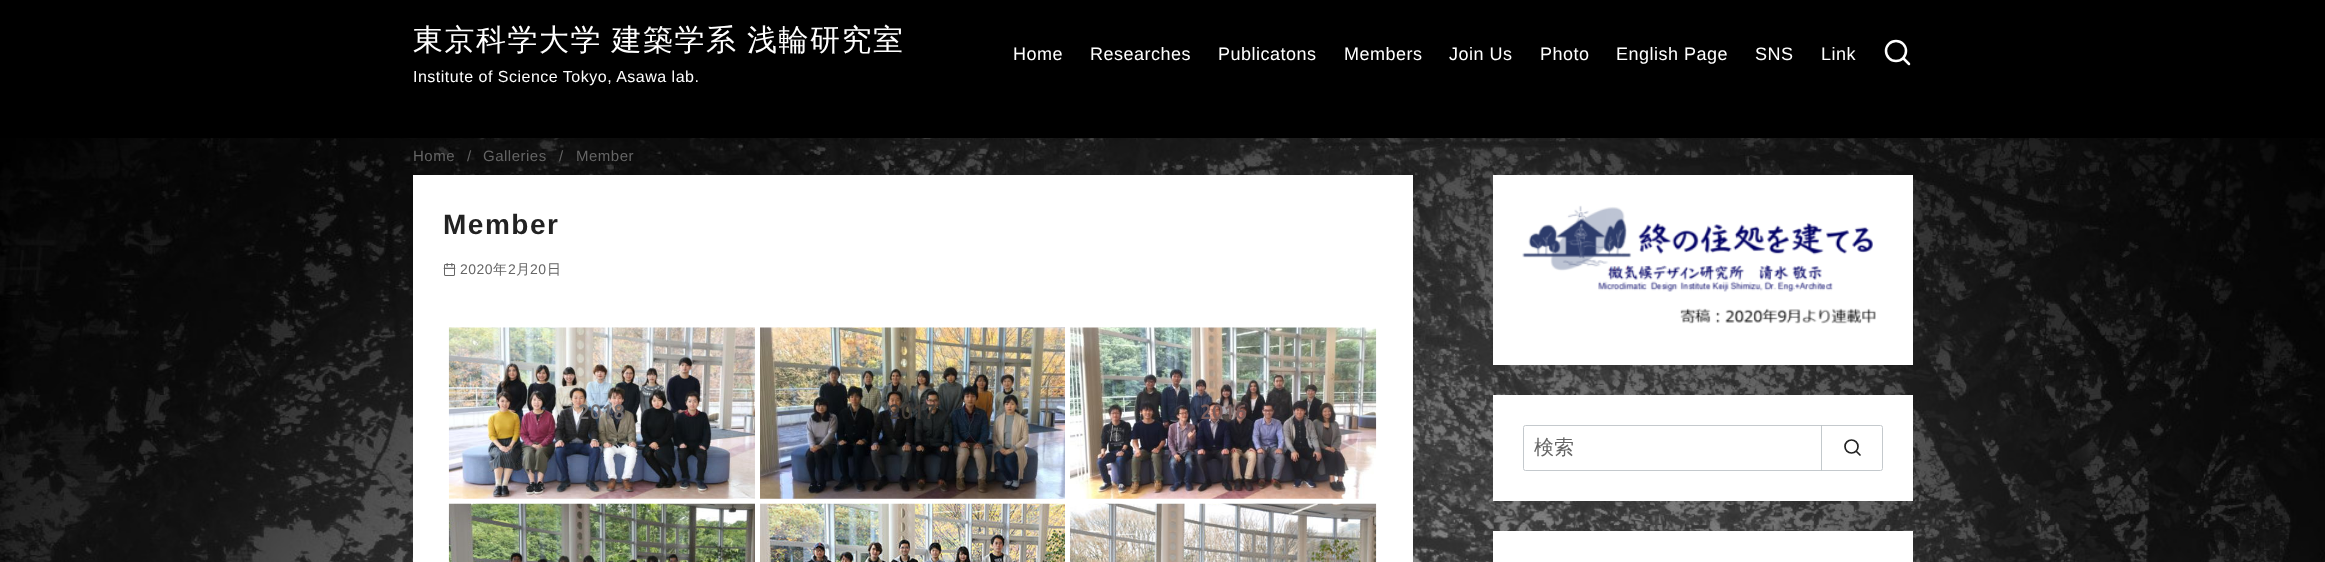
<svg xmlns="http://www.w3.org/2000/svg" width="2325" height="562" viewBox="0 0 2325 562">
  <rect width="100%" height="100%" fill="#fff"/>
  <image x="0" y="138" width="2325" height="424" href="img/1.png"/>
  <path d="M0 0h2325v138H0z" fill="#000"/>
  <circle cx="1896" cy="51" r="10" fill="none" stroke="#fff" stroke-width="2.5"/>
  <path d="M1909 64L1903.5 58.5" fill="none" stroke="#fff" stroke-width="2.5" stroke-linecap="round" stroke-linejoin="round"/>
  <path d="M413 175h1000v387H413z" fill="#fff"/>
  <image x="443" y="263" width="13" height="13" href="img/2.png"/>
  <image x="448" y="327" width="307" height="172" href="img/3.png"/>
  <image x="760" y="327" width="305" height="172" href="img/4.png"/>
  <image x="1070" y="327" width="307" height="172" href="img/5.png"/>
  <image x="448" y="503" width="307" height="59" href="img/6.png"/>
  <image x="760" y="503" width="305" height="59" href="img/7.png"/>
  <image x="1070" y="503" width="307" height="59" href="img/8.png"/>
  <path d="M1493 175h420v190H1493z" fill="#fff"/>
  <image x="1522" y="205" width="354" height="119" href="img/9.png"/>
  <path d="M1493 395h420v106H1493z" fill="#fff"/>
  <rect x="1523.5" y="425.5" width="359" height="45" rx="2" fill="none" stroke="#c4c9cd"/>
  <path d="M1821 425h1v46H1821z" fill="#bdc3c7e6"/>
  <circle cx="1851.5" cy="446.5" r="6.5" fill="none" stroke="#222" stroke-width="1.7"/>
  <path d="M1860 455L1856.5 451.5" fill="none" stroke="#222" stroke-width="1.7" stroke-linecap="round" stroke-linejoin="round"/>
  <path d="M1493 531h420v31H1493z" fill="#fff"/>
  <text x="413" y="50" word-spacing="-1" font-family="WenQuanYi Zen Hei" font-size="30" font-weight="500" letter-spacing="1.5" fill="#fff">東京科学大学 建築学系 浅輪研究室</text>
  <text x="413" y="82" font-family="Liberation Sans" font-size="16" letter-spacing="0.5" fill="#fff">Institute of Science Tokyo, Asawa lab.</text>
  <g font-family="Liberation Sans" font-size="18" letter-spacing="0.5" fill="#fff">
    <text x="1013" y="60">Home</text>
    <text x="1090" y="60">Researches</text>
    <text x="1218" y="60">Publicatons</text>
    <text x="1344" y="60">Members</text>
    <text x="1449" y="60">Join Us</text>
    <text x="1540" y="60">Photo</text>
    <text x="1616" y="60">English Page</text>
    <text x="1755" y="60">SNS</text>
    <text x="1821" y="60">Link</text>
  </g>
  <g font-family="Liberation Sans" font-size="15" letter-spacing="0.5" fill="#656565">
    <text x="413" y="161">Home</text>
    <text x="467" y="161">/</text>
    <text x="483" y="161">Galleries</text>
    <text x="559" y="161">/</text>
    <text x="576" y="161">Member</text>
  </g>
  <text x="443" y="234" font-family="Liberation Sans" font-size="28" font-weight="bold" letter-spacing="1.5" fill="#222">Member</text>
  <text x="460" y="274" font-family="Liberation Sans" font-size="14" letter-spacing="0.5" fill="#656565">2020</text>
  <text x="493" y="274" font-family="WenQuanYi Zen Hei" font-size="14" font-weight="500" letter-spacing="0.5" fill="#656565">年</text>
  <text x="508" y="274" font-family="Liberation Sans" font-size="14" letter-spacing="0.5" fill="#656565">2</text>
  <text x="516" y="274" font-family="WenQuanYi Zen Hei" font-size="14" font-weight="500" letter-spacing="0.5" fill="#656565">月</text>
  <text x="530" y="274" font-family="Liberation Sans" font-size="14" letter-spacing="0.5" fill="#656565">20</text>
  <text x="547" y="274" font-family="WenQuanYi Zen Hei" font-size="14" font-weight="500" letter-spacing="0.5" fill="#656565">日</text>
  <text x="578" y="419" font-family="Ubuntu" font-size="20" font-weight="bold" letter-spacing="0.5" fill="#706d6f">2018</text>
  <text x="889" y="419" font-family="Ubuntu" font-size="20" font-weight="bold" letter-spacing="0.5" fill="#413b37">2017</text>
  <text x="1200" y="419" font-family="Ubuntu" font-size="20" font-weight="bold" letter-spacing="0.5" fill="#765d5c">2016</text>
  <text x="1534" y="454" font-family="WenQuanYi Zen Hei" font-size="20" font-weight="500" fill="#656565">検索</text>
</svg>
